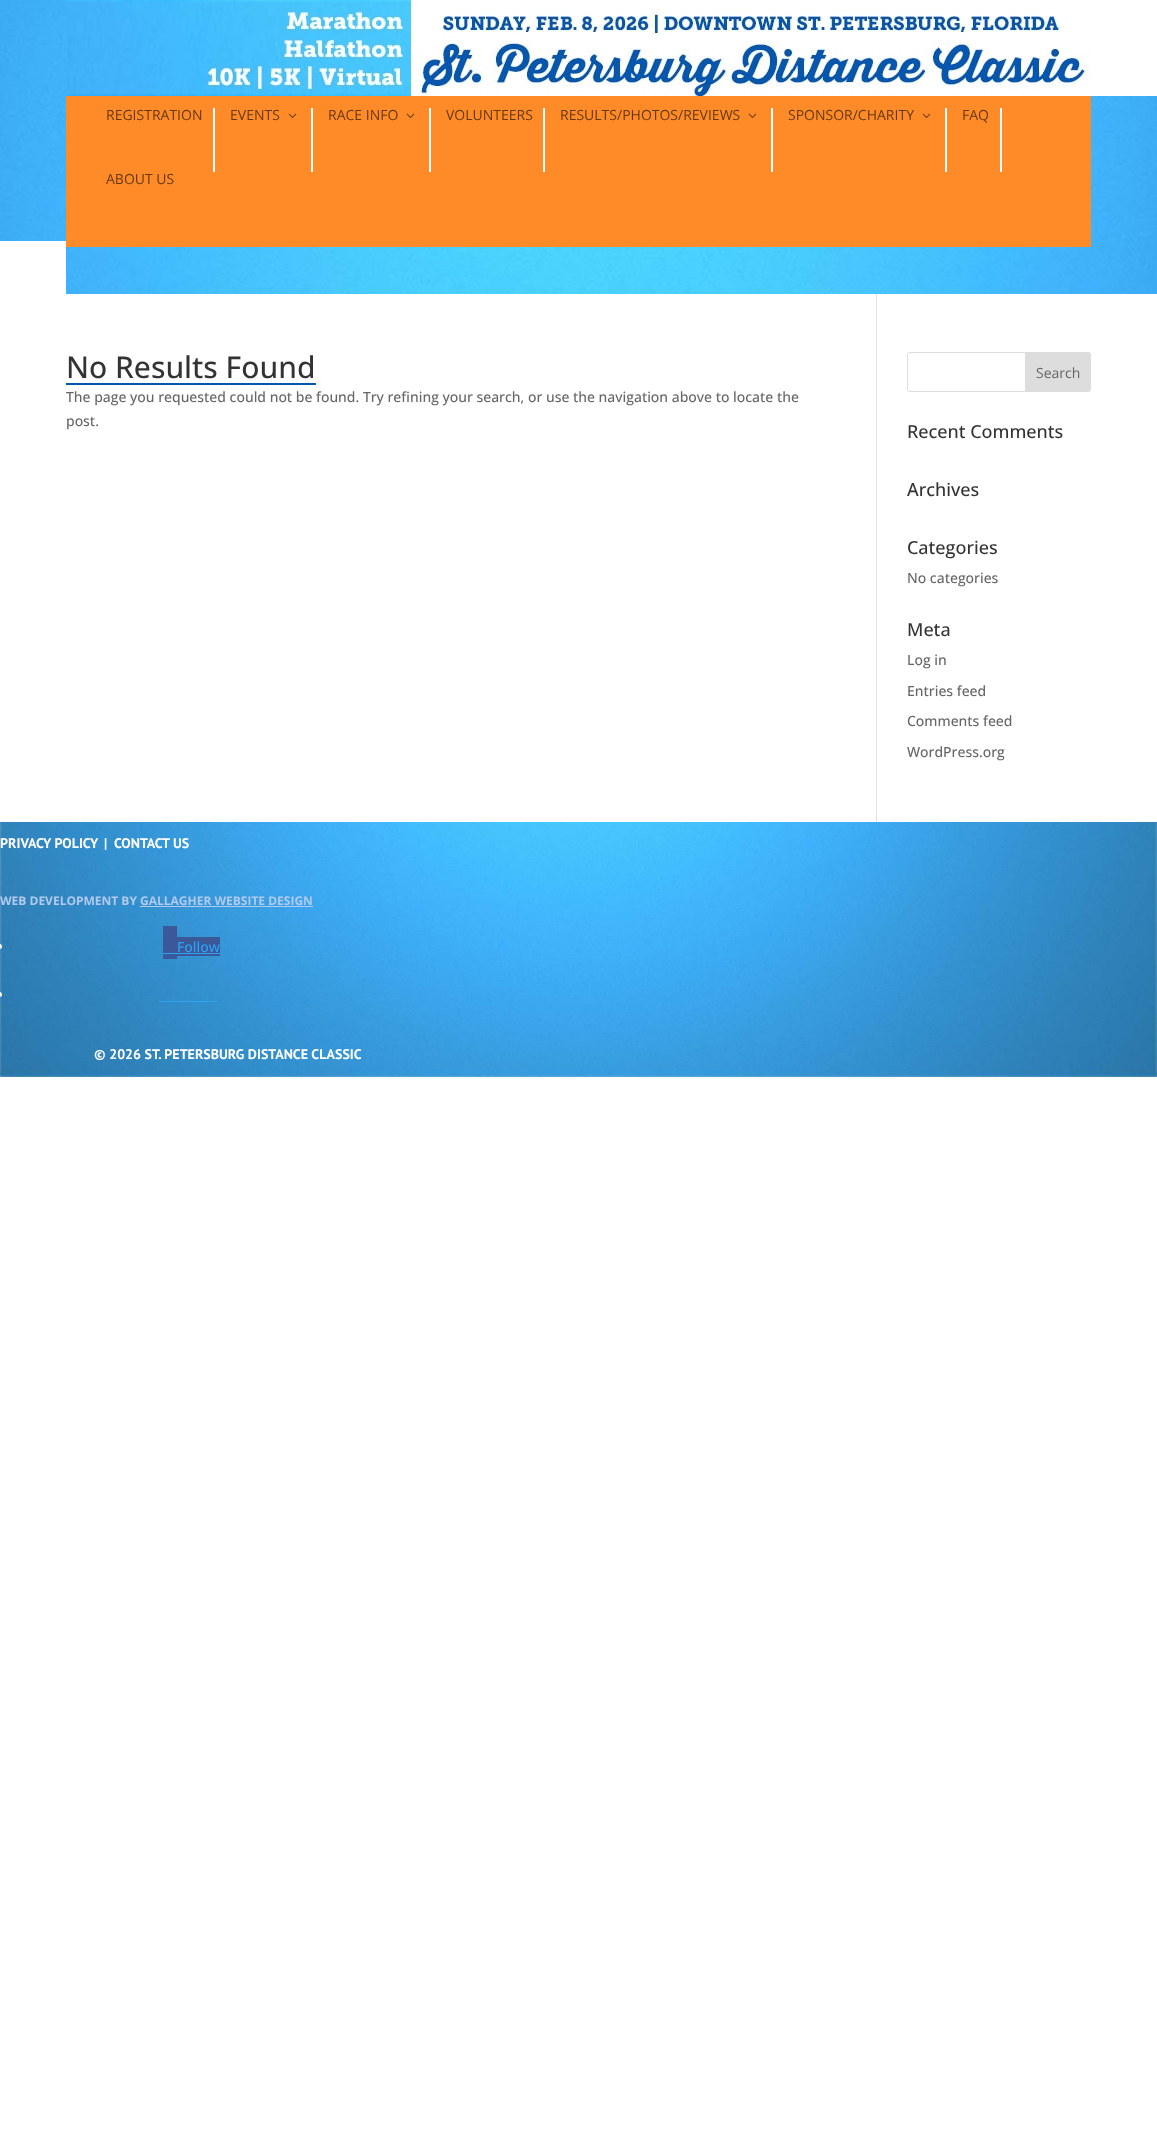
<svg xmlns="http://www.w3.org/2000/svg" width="1157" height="2151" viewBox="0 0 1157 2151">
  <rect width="100%" height="100%" fill="#fff"/>
  <image x="0" y="0" width="1157" height="294" href="img/1.png"/>
  <image x="67" y="0" width="1024" height="96" href="img/2.png"/>
  <path d="M1091 0h66v96H1091z" fill="#fff"/>
  <path d="M66 96h1025v151H66z" fill="#fe8b28"/>
  <path d="M213 108h2v64H213z" fill="#fff"/>
  <path d="M311 108h2v64H311z" fill="#fff"/>
  <image x="288" y="113" width="9" height="5" href="img/3.png"/>
  <path d="M429 108h2v64H429z" fill="#fff"/>
  <image x="406" y="113" width="9" height="5" href="img/3.png"/>
  <path d="M543 108h2v64H543z" fill="#fff"/>
  <path d="M771 108h2v64H771z" fill="#fff"/>
  <image x="748" y="113" width="9" height="5" href="img/3.png"/>
  <path d="M945 108h2v64H945z" fill="#fff"/>
  <image x="922" y="113" width="9" height="5" href="img/3.png"/>
  <path d="M1000 108h2v64H1000z" fill="#fff"/>
  <path d="M0 241h66v53H0z" fill="#fff"/>
  <path d="M876 294h1v528H876z" fill="#e2e2e2"/>
  <path d="M66 383h250v2H66z" fill="#0357b1"/>
  <rect x="907.5" y="352.5" width="183" height="39" rx="2.5" fill="none" stroke="#ddd"/>
  <path d="M1025.5 352.5H1088C1089.5 352.5 1090.5 353.5 1090.5 355V389C1090.5 390.5 1089.5 391.5 1088 391.5H1025.5Z" fill="#ddd" stroke="#ddd"/>
  <image x="0" y="822" width="1157" height="255" href="img/4.png"/>
  <path d="M140 906h173v1H140z" fill="#b1caed"/>
  <circle cx="-0.5" cy="946.5" r="2.5" fill="#fff"/>
  <path d="M163 926h14v33H163z" fill="#3b5998"/>
  <path d="M177 937h43v19H177z" fill="#3b5998"/>
  <path d="M163 953h57v1H163z" fill="#2ea3f2"/>
  <circle cx="-0.5" cy="994.5" r="2.5" fill="#fff"/>
  <path d="M159 1001h58v1H159z" fill="#2ea3f2"/>
  <g font-family="Open Sans" font-size="14" fill="#663810">
    <text x="106" y="120">REGISTRATION</text>
    <text x="230" y="120">EVENTS</text>
    <text x="328" y="120">RACE INFO</text>
    <text x="446" y="120">VOLUNTEERS</text>
    <text x="560" y="120">RESULTS/PHOTOS/REVIEWS</text>
    <text x="788" y="120">SPONSOR/CHARITY</text>
    <text x="962" y="120">FAQ</text>
    <text x="106" y="184">ABOUT US</text>
  </g>
  <text x="66" y="378" font-family="Open Sans" font-size="30" font-weight="500" fill="#333">No Results Found</text>
  <g font-family="Open Sans" font-size="14" font-weight="500" fill="#666">
    <text x="66" y="402">The page you requested could not be found. Try refining your search, or use the navigation above to locate the</text>
    <text x="66" y="426">post.</text>
  </g>
  <text x="1036" y="378" font-family="Open Sans" font-size="14" fill="#666">Search</text>
  <g font-family="Open Sans" font-size="18" font-weight="500" fill="#333">
    <text x="907" y="438">Recent Comments</text>
    <text x="907" y="496">Archives</text>
    <text x="907" y="554">Categories</text>
  </g>
  <text x="907" y="583" font-family="Open Sans" font-size="14" font-weight="500" fill="#666">No categories</text>
  <text x="907" y="636" font-family="Open Sans" font-size="18" font-weight="500" fill="#333">Meta</text>
  <g font-family="Open Sans" font-size="14" font-weight="500" fill="#666">
    <text x="907" y="665">Log in</text>
    <text x="907" y="696">Entries feed</text>
    <text x="907" y="726">Comments feed</text>
    <text x="907" y="757">WordPress.org</text>
  </g>
  <g font-family="PT Sans" font-size="14" font-weight="bold" fill="#fff">
    <text x="0" y="848">PRIVACY POLICY</text>
    <text x="104" y="848">|</text>
    <text x="114" y="848">CONTACT US</text>
  </g>
  <text x="0" y="905" font-family="Open Sans" font-size="12" font-weight="bold" fill="#b1caed">WEB DEVELOPMENT BY GALLAGHER WEBSITE DESIGN</text>
  <text x="177" y="952" font-family="Open Sans" font-size="14" font-weight="500" fill="#2ea3f2">Follow</text>
  <text x="94" y="1059" font-family="PT Sans" font-size="14" font-weight="bold" fill="#fff">© 2026 ST. PETERSBURG DISTANCE CLASSIC</text>
</svg>
